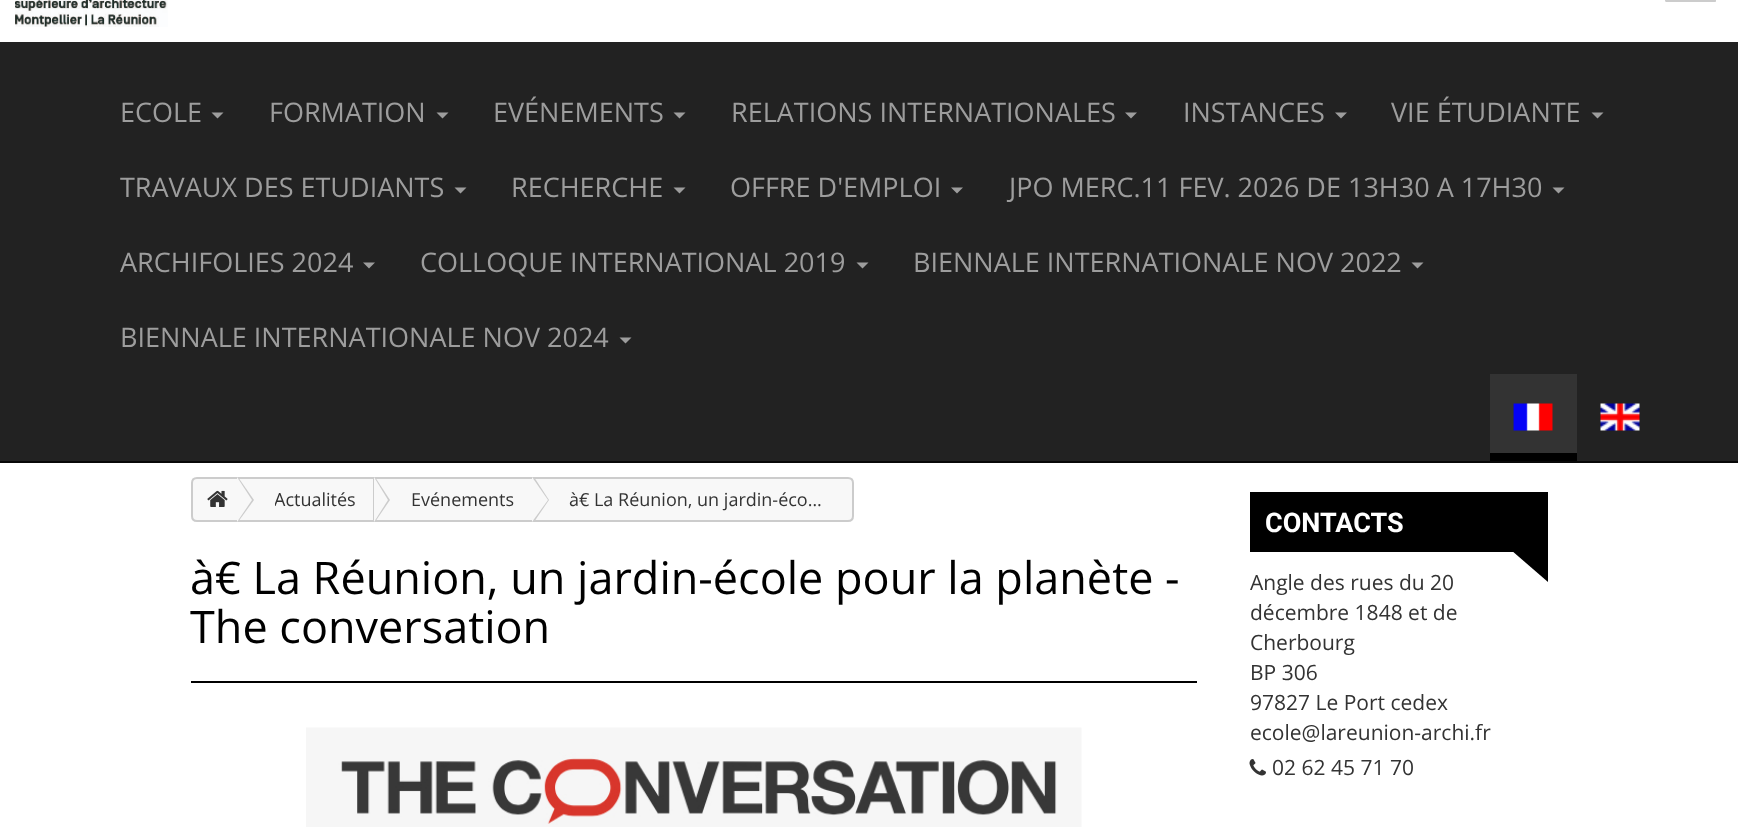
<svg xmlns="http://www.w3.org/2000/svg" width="1738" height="827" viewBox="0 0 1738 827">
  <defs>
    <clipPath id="clip1"><path d="M275 486h81v27H275z"/></clipPath>
  </defs>
  <rect width="100%" height="100%" fill="#fff"/>
  <rect x="1708" y="-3" width="7" height="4" rx="0.5" fill="none" stroke="#ccc" stroke-width="2"/>
  <rect x="1666" y="-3" width="49" height="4" rx="0.5" fill="none" stroke="#ccc" stroke-width="2"/>
  <image x="15" y="0" width="153" height="27" href="img/1.png"/>
  <path d="M0 42h1738v419H0z" fill="#222"/>
  <path d="M0 461h1738v2H0z" fill="#080808"/>
  <path d="M211.5 112.5H223.5L217.5 118.5Z" fill="#9d9d9d"/>
  <path d="M436.5 112.5H448.5L442.5 118.5Z" fill="#9d9d9d"/>
  <path d="M673.5 112.5H685.5L679.5 118.5Z" fill="#9d9d9d"/>
  <path d="M1125 112.5H1137L1131 118.5Z" fill="#9d9d9d"/>
  <path d="M1335 112.5H1347L1341 118.5Z" fill="#9d9d9d"/>
  <path d="M1591.5 112.5H1603.5L1597.5 118.5Z" fill="#9d9d9d"/>
  <path d="M454.5 187.5H466.5L460.5 193.5Z" fill="#9d9d9d"/>
  <path d="M673.5 187.5H685.5L679.5 193.5Z" fill="#9d9d9d"/>
  <path d="M951 187.5H963L957 193.5Z" fill="#9d9d9d"/>
  <path d="M1552.5 187.5H1564.5L1558.5 193.5Z" fill="#9d9d9d"/>
  <path d="M363 262.5H375L369 268.5Z" fill="#9d9d9d"/>
  <path d="M856.5 262.5H868.5L862.5 268.5Z" fill="#9d9d9d"/>
  <path d="M1411.5 262.5H1423.5L1417.5 268.5Z" fill="#9d9d9d"/>
  <path d="M619.5 337.5H631.5L625.5 343.5Z" fill="#9d9d9d"/>
  <path d="M1490 374h87v79H1490z" fill="#333"/>
  <path d="M1490 453h87v8H1490z" fill="#000"/>
  <image x="1513" y="403" width="40" height="28" href="img/2.png"/>
  <image x="1600" y="403" width="40" height="28" href="img/3.png"/>
  <path d="M197 478H238V521H197C194 521 192 519 192 516V483C192 480 194 478 197 478Z" fill="#f8f8f8" stroke="#ccc" stroke-width="2"/>
  <path d="M238 478h136v43H238z" fill="#f8f8f8" stroke="#ccc" stroke-width="2"/>
  <path d="M238 522V477L254 500Z" fill="#ccc"/>
  <path d="M237 522V477L252 500Z" fill="#f8f8f8"/>
  <image x="207" y="490" width="21" height="17" href="img/4.png"/>
  <path d="M375 478h158v43H375z" fill="#f8f8f8" stroke="#ccc" stroke-width="2"/>
  <path d="M375 522V477L390 500Z" fill="#ccc"/>
  <path d="M374 522V477L388 500Z" fill="#f8f8f8"/>
  <path d="M534 478H848C851 478 853 480 853 483V516C853 519 851 521 848 521H534Z" fill="#f8f8f8" stroke="#ccc" stroke-width="2"/>
  <path d="M534 522V477L549 500Z" fill="#ccc"/>
  <path d="M532 522V477L548 500Z" fill="#f8f8f8"/>
  <path d="M191 681h1006v2H191z" fill="#000"/>
  <image x="306" y="727" width="776" height="100" href="img/5.png"/>
  <path d="M1250 492h298v60H1250z" fill="#000"/>
  <path d="M1548 537V582L1496 537Z" fill="#000"/>
  <image x="1249" y="759" width="17" height="17" href="img/6.png"/>
  <g font-family="Open Sans" font-size="27" fill="#9d9d9d">
    <text x="120" y="122">ECOLE</text>
    <text x="269" y="122">FORMATION</text>
    <text x="493" y="122">EVÉNEMENTS</text>
    <text x="731" y="122">RELATIONS INTERNATIONALES</text>
    <text x="1183" y="122">INSTANCES</text>
    <text x="1391" y="122">VIE ÉTUDIANTE</text>
    <text x="120" y="197">TRAVAUX DES ETUDIANTS</text>
    <text x="511" y="197">RECHERCHE</text>
    <text x="730" y="197">OFFRE D'EMPLOI</text>
    <text x="1009" y="197">JPO MERC.11 FEV. 2026 DE 13H30 A 17H30</text>
    <text x="120" y="272">ARCHIFOLIES 2024</text>
    <text x="420" y="272">COLLOQUE INTERNATIONAL 2019</text>
    <text x="913" y="272">BIENNALE INTERNATIONALE NOV 2022</text>
    <text x="120" y="347">BIENNALE INTERNATIONALE NOV 2024</text>
  </g>
  <g clip-path="url(#clip1)">
    <text x="274" y="506" font-family="Open Sans" font-size="18" fill="#333">Actualités</text>
  </g>
  <g font-family="Open Sans" font-size="18" fill="#333">
    <text x="411" y="506">Evénements</text>
    <text x="569" y="506">à€ La Réunion, un jardin-éco…</text>
  </g>
  <g font-family="Open Sans" font-size="45" fill="#000">
    <text x="190" y="594">à€ La Réunion, un jardin-école pour la planète -</text>
    <text x="190" y="643">The conversation</text>
  </g>
  <text x="1265" y="532" font-family="Roboto" font-size="27" font-weight="bold" fill="#fff">CONTACTS</text>
  <g font-family="Open Sans" font-size="21" fill="#333">
    <text x="1250" y="590">Angle des rues du 20</text>
    <text x="1250" y="620">décembre 1848 et de</text>
    <text x="1250" y="650">Cherbourg</text>
    <text x="1250" y="680">BP 306</text>
    <text x="1250" y="710">97827 Le Port cedex</text>
    <text x="1250" y="740">ecole@lareunion-archi.fr</text>
    <text x="1272" y="775">02 62 45 71 70</text>
  </g>
</svg>
